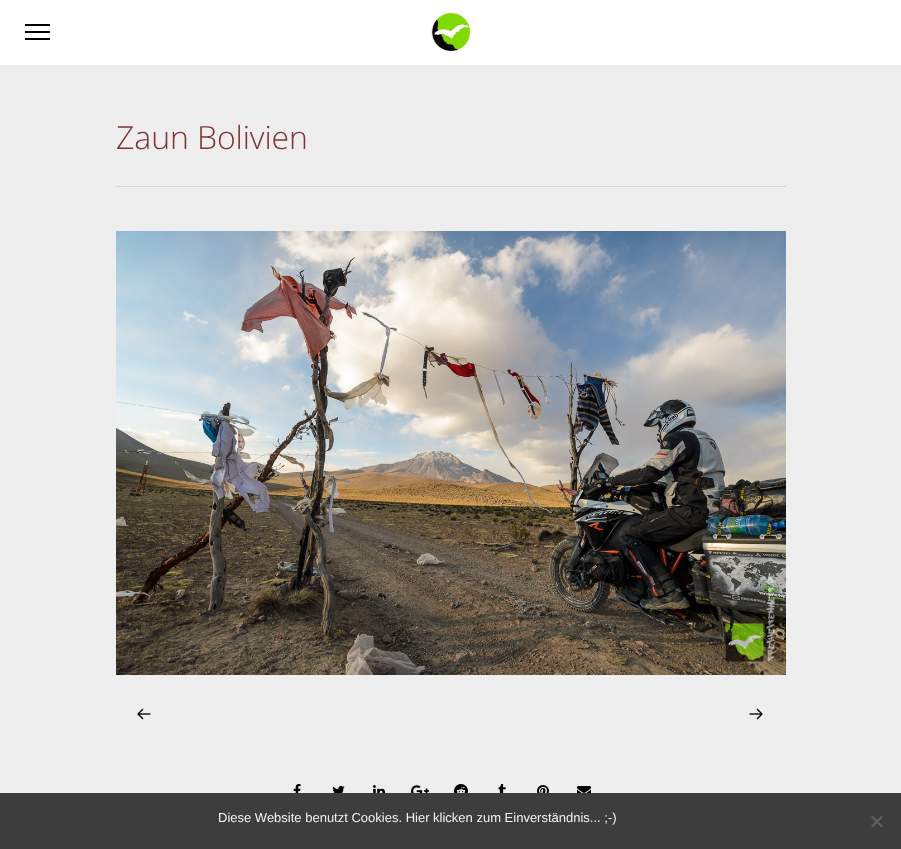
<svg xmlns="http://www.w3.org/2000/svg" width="901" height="849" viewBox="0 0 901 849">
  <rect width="100%" height="100%" fill="#eee"/>
  <path d="M0 0h901v65H0z" fill="#fff"/>
  <image x="431" y="13" width="39" height="38" href="img/1.png"/>
  <path d="M25 31h25v2H25z" fill="#000"/>
  <path d="M25 24h25v2H25z" fill="#000"/>
  <path d="M25 38h25v2H25z" fill="#000"/>
  <path d="M116 186h670v1H116z" fill="#d6d6d6"/>
  <image x="116" y="231" width="670" height="444" href="img/2.png"/>
  <image x="137" y="708" width="14" height="12" href="img/3.png"/>
  <image x="749" y="708" width="14" height="12" href="img/4.png"/>
  <image x="293" y="784" width="8" height="9" href="img/5.png"/>
  <image x="332" y="786" width="13" height="7" href="img/6.png"/>
  <image x="373" y="785" width="12" height="8" href="img/7.png"/>
  <image x="411" y="785" width="18" height="8" href="img/8.png"/>
  <image x="454" y="784" width="14" height="9" href="img/9.png"/>
  <image x="498" y="784" width="8" height="9" href="img/10.png"/>
  <image x="537" y="785" width="12" height="8" href="img/11.png"/>
  <image x="577" y="786" width="14" height="7" href="img/12.png"/>
  <path d="M0 793h901v56H0z" fill="#3d3d3d"/>
  <path d="M881.5 815.5L883 817L872.5 827.5L871 826Z" fill="#5f5f5f"/>
  <path d="M871 817L872.5 815.5L883 826L881.5 827.5Z" fill="#5f5f5f"/>
  <text x="116" y="149" font-family="Open Sans" font-size="32" font-weight="300" letter-spacing="-0.1" fill="#7f3333">Zaun Bolivien</text>
  <text x="218" y="822" font-family="Liberation Sans" font-size="13" fill="#f2f2f2">Diese Website benutzt Cookies. Hier klicken zum Einverständnis... ;-)</text>
</svg>
